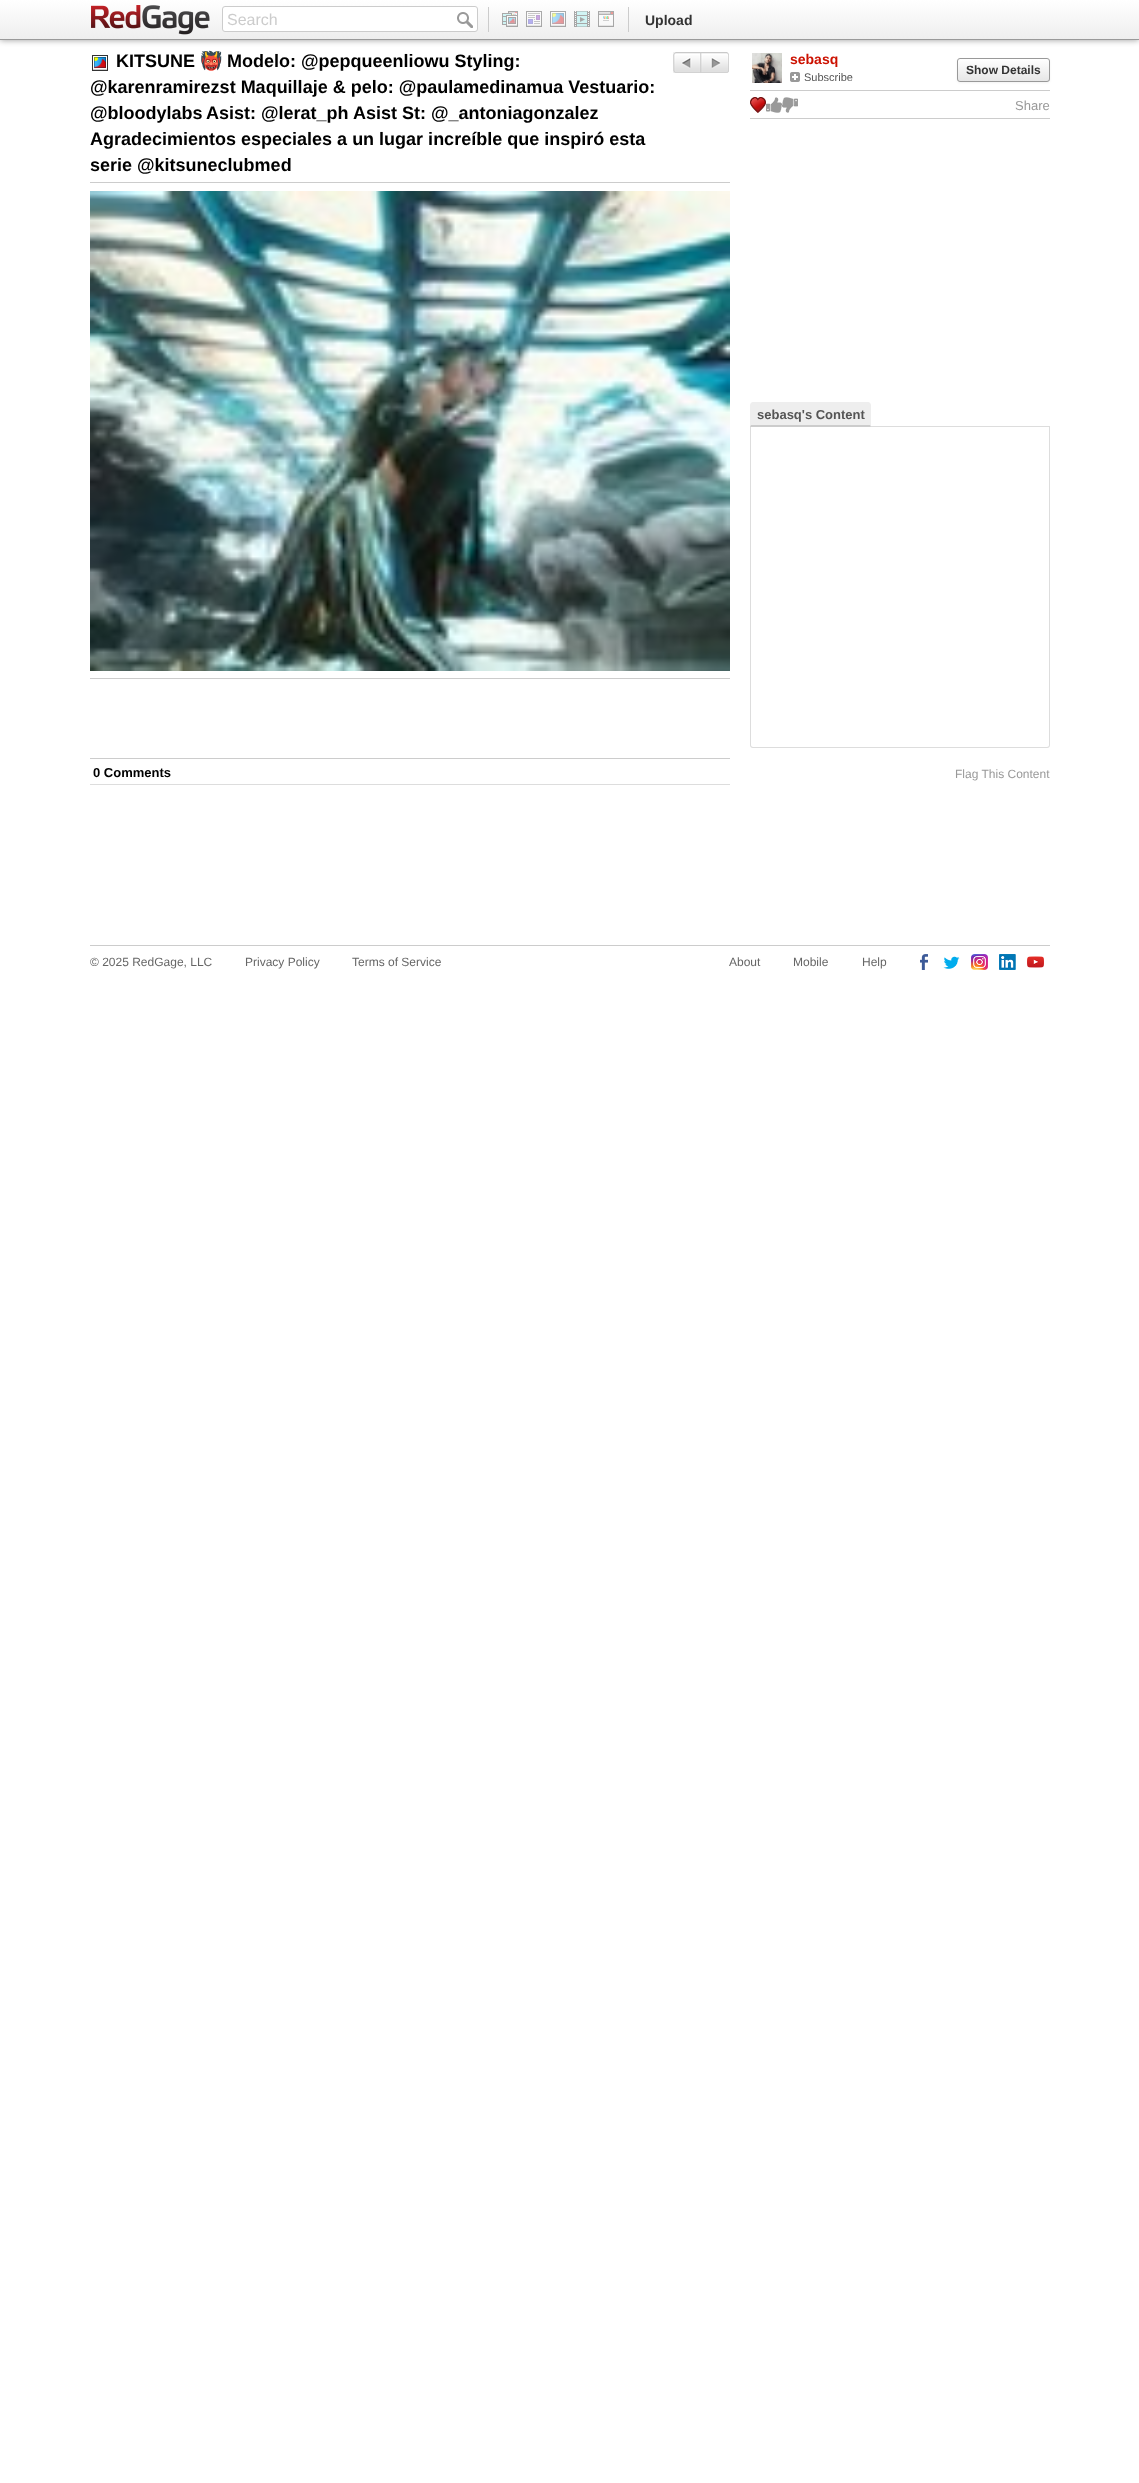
<svg xmlns="http://www.w3.org/2000/svg" width="1139" height="2483" viewBox="0 0 1139 2483">
  <defs>
    <linearGradient id="g1" gradientUnits="userSpaceOnUse" x1="570" y1="0" x2="570" y2="39"><stop offset="0" stop-color="#fff"/><stop offset="1" stop-color="#eee"/></linearGradient>
    <clipPath id="clip1"><rect x="957" y="58" width="93" height="24" rx="3"/></clipPath>
    <linearGradient id="g2" gradientUnits="userSpaceOnUse" x1="1004" y1="59" x2="1004" y2="81"><stop offset="0" stop-color="#fff"/><stop offset="1" stop-color="#e6e6e6"/></linearGradient>
  </defs>
  <rect width="100%" height="100%" fill="#fff"/>
  <path d="M0 0h1139v40H0z" fill="#00000066" filter="blur(3px)"/>
  <path d="M0 0h1139v39H0z" fill="url(#g1)"/>
  <path d="M0 39h1139v1H0z" fill="#999"/>
  <image x="91" y="5" width="119" height="30" href="img/1.png"/>
  <rect x="222.5" y="6.5" width="255" height="25" rx="2.5" fill="#fff" stroke="#ccc"/>
  <image x="457" y="12" width="16" height="16" href="img/2.png"/>
  <path d="M628 7h1v25H628z" fill="#ccc"/>
  <path d="M488 7h1v25H488z" fill="#ccc"/>
  <image x="502" y="11" width="16" height="16" href="img/3.png"/>
  <image x="526" y="11" width="16" height="16" href="img/4.png"/>
  <image x="550" y="11" width="16" height="16" href="img/5.png"/>
  <image x="574" y="11" width="16" height="16" href="img/6.png"/>
  <image x="598" y="11" width="16" height="16" href="img/7.png"/>
  <path d="M90 182h640v1H90z" fill="#ccc"/>
  <image x="92" y="55" width="16" height="16" href="img/8.png"/>
  <image x="673" y="52" width="27" height="21" href="img/9.png"/>
  <image x="700" y="52" width="29" height="21" href="img/10.png"/>
  <image x="90" y="191" width="640" height="480" href="img/11.png"/>
  <path d="M90 678h640v1H90z" fill="#ccc"/>
  <path d="M90 758h640v1H90z" fill="#ccc"/>
  <path d="M90 784h640v1H90z" fill="#ddd"/>
  <image x="752" y="53" width="30" height="30" href="img/12.png"/>
  <image x="790" y="72" width="10" height="10" href="img/13.png"/>
  <rect x="957" y="59" width="93" height="24" rx="3" fill="#0000000d" filter="blur(1px)"/>
  <g clip-path="url(#clip1)">
    <path d="M957 59h93v22H957z" fill="url(#g2)"/>
  </g>
  <rect x="957.5" y="58.5" width="92" height="23" rx="2.5" fill="none" stroke="#999"/>
  <path d="M750 90h300v1H750z" fill="#ccc"/>
  <path d="M750 118h300v1H750z" fill="#ccc"/>
  <image x="750" y="97" width="16" height="16" href="img/14.png"/>
  <image x="766" y="97" width="16" height="16" href="img/15.png"/>
  <image x="782" y="97" width="16" height="16" href="img/16.png"/>
  <path d="M871 426h179v1H871z" fill="#ddd"/>
  <path d="M753 402H868C869.5 402 871 403.5 871 405V427H750V405C750 403.5 751.5 402 753 402Z" fill="#eee"/>
  <path d="M871 427L870 425H751L750 427Z" fill="#ccc"/>
  <path d="M750 427H1050V745C1050 747 1049 748 1047 748H753C751 748 750 747 750 745ZM751 427H1049V745C1049 746 1048 747 1047 747H753C752 747 751 746 751 745Z" fill="#ddd" fill-rule="evenodd"/>
  <path d="M90 945h960v1H90z" fill="#ccc"/>
  <image x="920" y="954" width="8" height="16" href="img/17.png"/>
  <image x="943" y="956" width="17" height="13" href="img/18.png"/>
  <image x="971" y="954" width="17" height="16" href="img/19.png"/>
  <image x="999" y="954" width="17" height="16" href="img/20.png"/>
  <image x="1027" y="956" width="17" height="12" href="img/21.png"/>
  <text x="227" y="25" font-family="Liberation Sans" font-size="16" fill="#ccc">Search</text>
  <text x="645" y="25" font-family="Liberation Sans" font-size="14" font-weight="bold" fill="#333">Upload</text>
  <text x="116" y="67" font-family="Liberation Sans" font-size="18" font-weight="bold" fill="#000">KITSUNE</text>
  <text x="200" y="67" font-family="Noto Color Emoji" font-size="18" font-weight="bold" fill="#000">👹</text>
  <g font-family="Liberation Sans" font-size="18" font-weight="bold" fill="#000">
    <text x="227" y="67">Modelo: @pepqueenliowu Styling:</text>
    <text x="90" y="93">@karenramirezst Maquillaje &amp; pelo: @paulamedinamua Vestuario:</text>
    <text x="90" y="119">@bloodylabs</text>
    <text x="206" y="119">Asist: @lerat_ph</text>
    <text x="353" y="119">Asist St: @_antoniagonzalez</text>
    <text x="90" y="145">Agradecimientos especiales a un lugar increíble que inspiró esta</text>
    <text x="90" y="171">serie @kitsuneclubmed</text>
  </g>
  <text x="93" y="777" font-family="Liberation Sans" font-size="13" font-weight="bold" fill="#000">0 Comments</text>
  <text x="790" y="64" font-family="Liberation Sans" font-size="14" font-weight="bold" fill="#c10">sebasq</text>
  <text x="804" y="81" font-family="Liberation Sans" font-size="11" fill="#555">Subscribe</text>
  <text x="966" y="74" font-family="Liberation Sans" font-size="12" font-weight="bold" fill="#333">Show Details</text>
  <text x="1015" y="110" font-family="Liberation Sans" font-size="13" fill="#999">Share</text>
  <text x="757" y="419" font-family="Liberation Sans" font-size="13" font-weight="bold" fill="#555">sebasq's Content</text>
  <text x="955" y="778" font-family="Liberation Sans" font-size="12" fill="#999">Flag This Content</text>
  <g font-family="Liberation Sans" font-size="12" fill="#666">
    <text x="90" y="966">© 2025 RedGage, LLC</text>
    <text x="245" y="966">Privacy Policy</text>
    <text x="352" y="966">Terms of Service</text>
    <text x="729" y="966">About</text>
    <text x="793" y="966">Mobile</text>
    <text x="862" y="966">Help</text>
  </g>
</svg>
